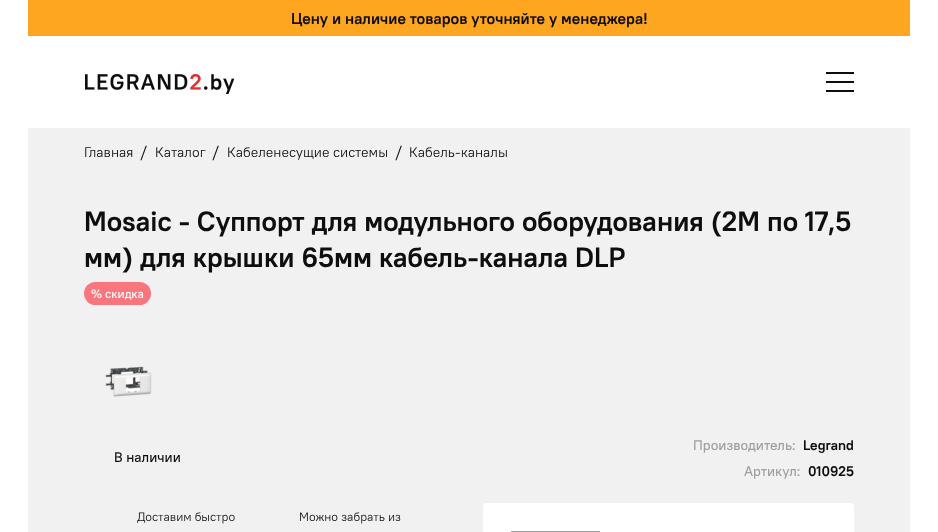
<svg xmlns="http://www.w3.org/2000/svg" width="938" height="532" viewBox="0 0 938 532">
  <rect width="100%" height="100%" fill="#fff"/>
  <path d="M28 0h882v36H28z" fill="#ffa621"/>
  <image x="85" y="74" width="150" height="20" href="img/1.png"/>
  <path d="M826 90h28v2H826z" fill="#0e0e0e"/>
  <path d="M826 72h28v2H826z" fill="#0e0e0e"/>
  <path d="M826 81h28v2H826z" fill="#0e0e0e"/>
  <path d="M28 128h882v404H28z" fill="#f1f1f1"/>
  <rect x="84" y="282" width="67" height="23" rx="11.5" fill="#f9767e"/>
  <image x="105" y="366" width="47" height="31" href="img/2.png"/>
  <rect x="483" y="503" width="371" height="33" rx="4" fill="#fff"/>
  <path d="M511 531h89v1H511z" fill="#9f9f9f"/>
  <text x="291" y="24" font-family="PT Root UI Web" font-size="15.75" font-weight="bold" fill="#0e0e0e">Цену и наличие товаров уточняйте у менеджера!</text>
  <text x="84" y="157" font-family="PT Root UI Web" font-size="14" fill="#0e0e0e">Главная</text>
  <text x="140" y="157" font-family="PT Root UI Web" font-size="16" fill="#0e0e0e">/</text>
  <text x="155" y="157" font-family="PT Root UI Web" font-size="14" fill="#0e0e0e">Каталог</text>
  <text x="212" y="157" font-family="PT Root UI Web" font-size="16" fill="#0e0e0e">/</text>
  <text x="227" y="157" font-family="PT Root UI Web" font-size="14" fill="#0e0e0e">Кабеленесущие системы</text>
  <text x="395" y="157" font-family="PT Root UI Web" font-size="16" fill="#0e0e0e">/</text>
  <text x="409" y="157" font-family="PT Root UI Web" font-size="14" fill="#0e0e0e">Кабель-каналы</text>
  <g font-family="PT Root UI Web" font-size="28" font-weight="bold" fill="#0e0e0e">
    <text x="84" y="231">Mosaic - Суппорт для модульного оборудования (2М по 17,5</text>
    <text x="84" y="267">мм) для крышки 65мм кабель-канала DLP</text>
  </g>
  <text x="91" y="298" font-family="PT Root UI Web" font-size="12.25" font-weight="500" fill="#fff">% скидка</text>
  <text x="114" y="462" font-family="PT Root UI Web" font-size="14" font-weight="500" fill="#0e0e0e">В наличии</text>
  <text x="693" y="450" font-family="PT Root UI Web" font-size="14" font-weight="500" fill="#9f9f9f">Производитель:</text>
  <text x="803" y="450" font-family="PT Root UI Web" font-size="14" font-weight="bold" fill="#0e0e0e">Legrand</text>
  <text x="744" y="476" font-family="PT Root UI Web" font-size="14" font-weight="500" fill="#9f9f9f">Артикул:</text>
  <text x="808" y="476" font-family="PT Root UI Web" font-size="14" font-weight="bold" fill="#0e0e0e">010925</text>
  <g font-family="PT Root UI Web" font-size="12.25" fill="#0e0e0e">
    <text x="137" y="521">Доставим быстро</text>
    <text x="299" y="521">Можно забрать из</text>
  </g>
</svg>
